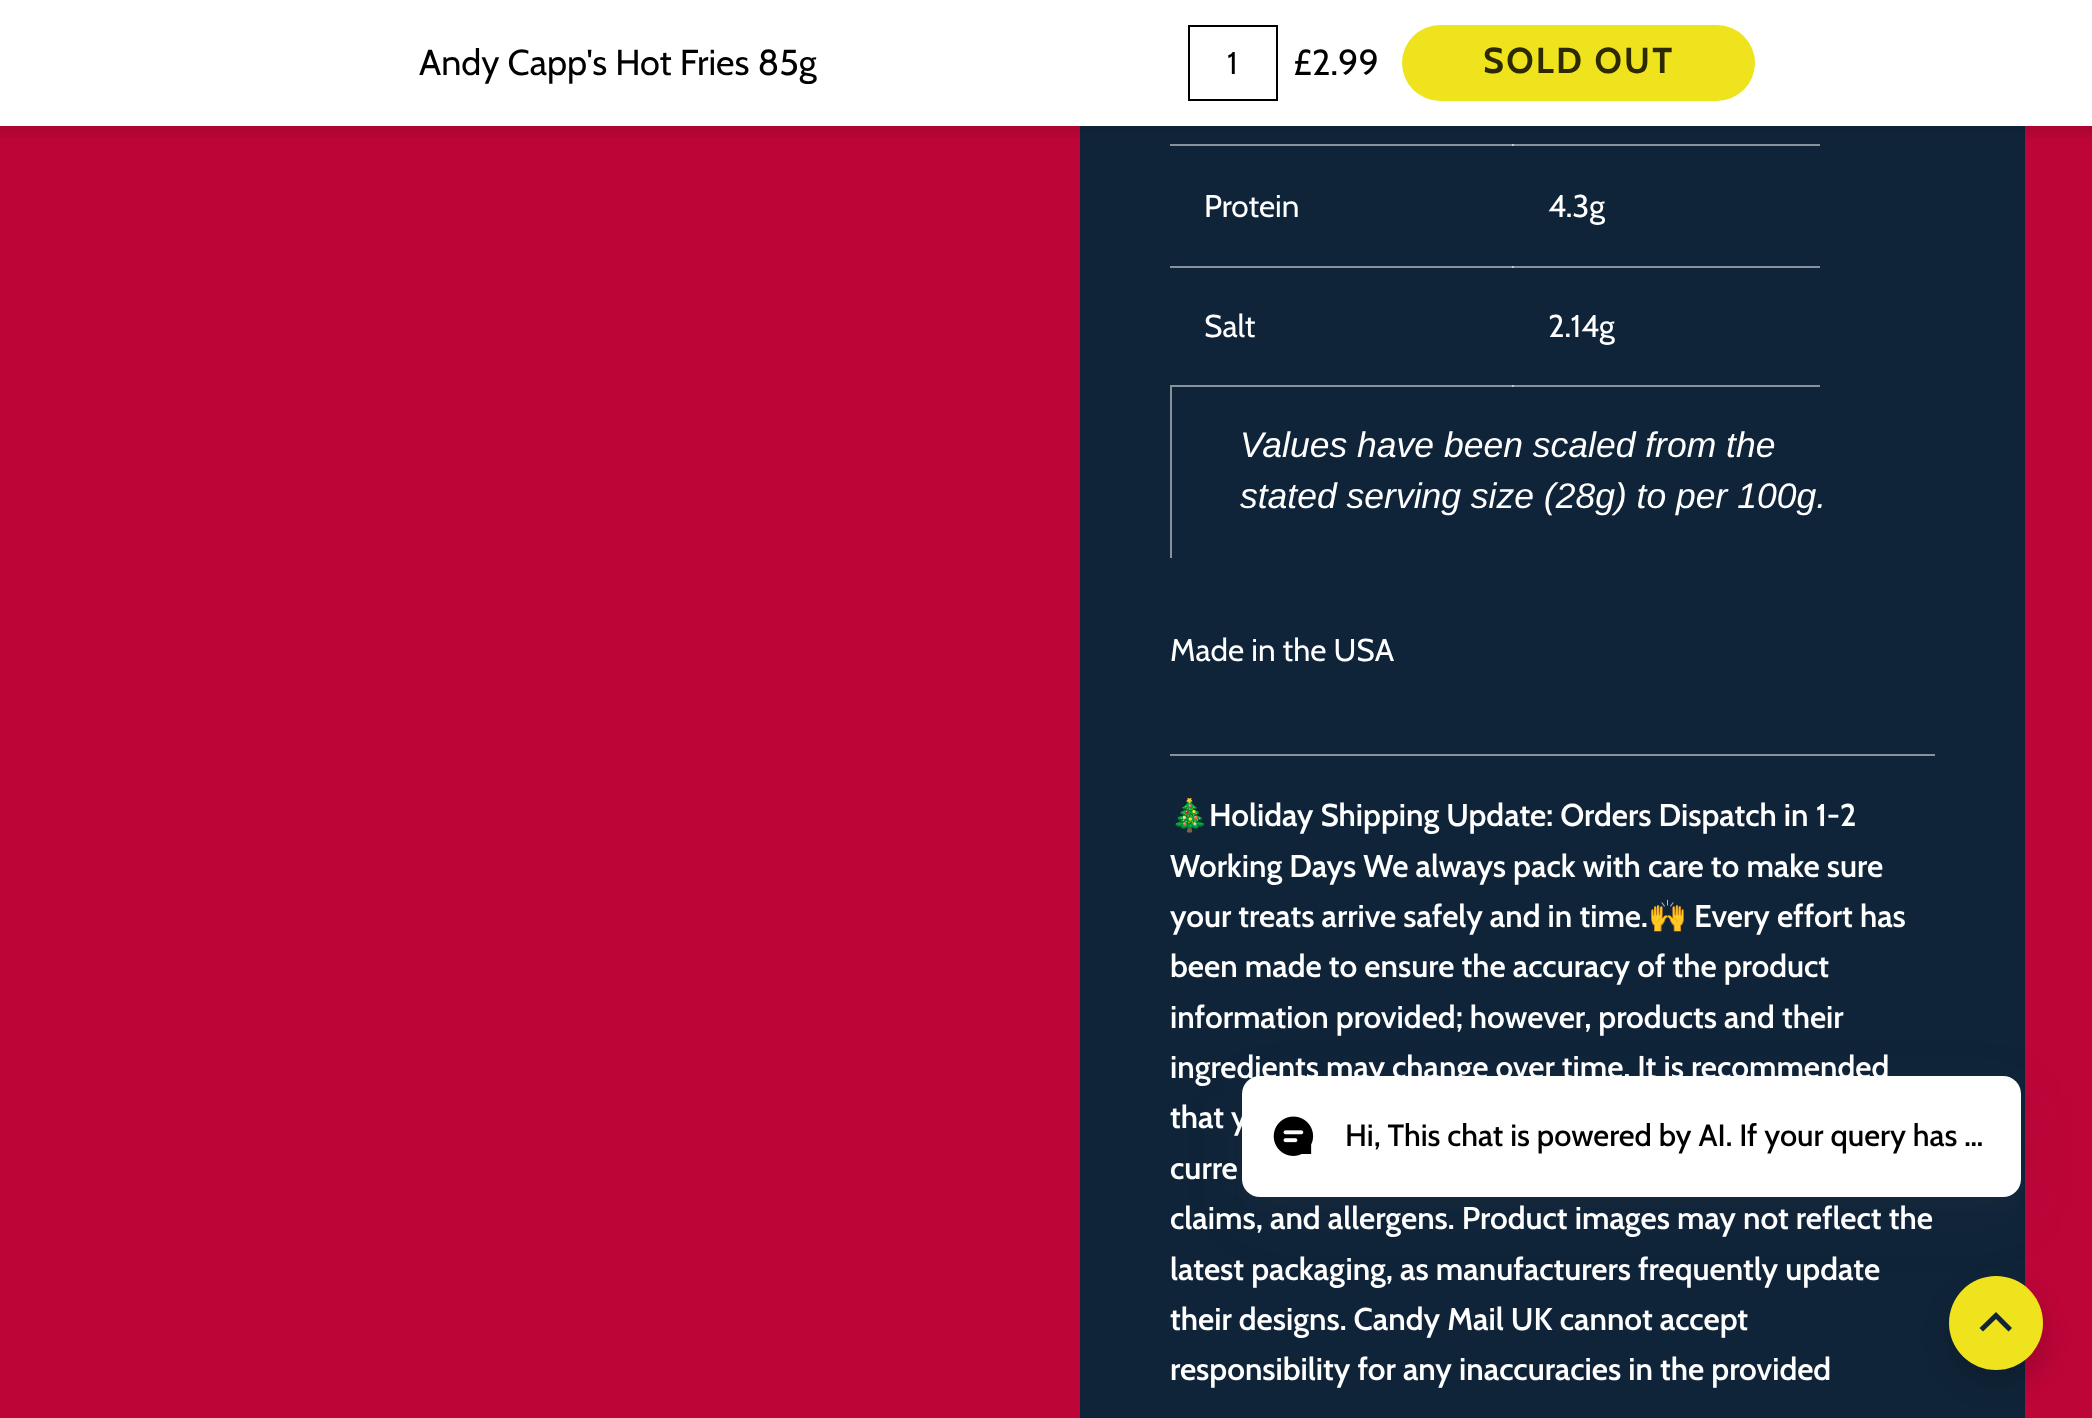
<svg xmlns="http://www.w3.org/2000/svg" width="2092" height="1418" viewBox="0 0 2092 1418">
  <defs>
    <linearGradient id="g1" gradientUnits="userSpaceOnUse" x1="1046" y1="126" x2="1046" y2="142"><stop offset="0" stop-color="#000" stop-opacity="0.09"/><stop offset="1" stop-color="#000" stop-opacity="0"/></linearGradient>
  </defs>
  <rect width="100%" height="100%" fill="#bd0538"/>
  <path d="M0 0h2092v126H0z" fill="#fff"/>
  <path d="M1189 26h88v74H1189z" fill="none" stroke="#000" stroke-width="2"/>
  <rect x="1402" y="25" width="353" height="76" rx="38" fill="#efe31d"/>
  <path d="M1080 126h945v1292H1080z" fill="#102439"/>
  <path d="M0 126h2092v12H0z" fill="url(#g1)"/>
  <path d="M1170 144h650v2H1170z" fill="#88929c"/>
  <path d="M1170 266h650v2H1170z" fill="#88929c"/>
  <path d="M1170 385h650v2H1170z" fill="#88929c"/>
  <path d="M1512 144h2v2H1512z" fill="#c4c9ce"/>
  <path d="M1512 266h2v2H1512z" fill="#c4c9ce"/>
  <path d="M1512 385h2v2H1512z" fill="#c4c9ce"/>
  <path d="M1170 387h2v171H1170z" fill="#88929c"/>
  <path d="M1170 754h765v2H1170z" fill="#88929c"/>
  <rect x="1949" y="1289" width="94" height="95" rx="47" fill="#0000002e" filter="blur(13.5px)"/>
  <circle cx="1996" cy="1323" r="47" fill="#efe31d"/>
  <rect x="1242" y="1094" width="779" height="123" rx="18" fill="#373f4714" filter="blur(28.5px)"/>
  <rect x="1242" y="1085" width="779" height="123" rx="18" fill="#373f4714" filter="blur(4.5px)"/>
  <path d="M1996 1312L2012 1328L2008.5 1331.5L1996 1319L1983 1331.5L1979.5 1328Z" fill="#102439"/>
  <text x="419" y="75" font-family="Cabin" font-size="36" fill="#000">Andy Capp's Hot Fries 85g</text>
  <text x="1227" y="74" font-family="Cabin" font-size="31.5" fill="#000">1</text>
  <text x="1293" y="75" font-family="Cabin" font-size="36" fill="#000">£2.99</text>
  <text x="1483" y="73" font-family="Cabin" font-size="36" font-weight="bold" letter-spacing="2.25" fill="#2d2a01">SOLD OUT</text>
  <g font-family="Cabin" font-size="31.5" fill="#fff">
    <text x="1204" y="217">Protein</text>
    <text x="1548" y="217">4.3g</text>
    <text x="1204" y="337">Salt</text>
    <text x="1548" y="337">2.14g</text>
  </g>
  <g font-family="Liberation Sans" font-size="35.5" font-style="italic" fill="#fff">
    <text x="1240" y="457">Values have been scaled from the</text>
    <text x="1240" y="508">stated serving size (28g) to per 100g.</text>
  </g>
  <text x="1170" y="661" font-family="Cabin" font-size="31.5" fill="#fff">Made in the USA</text>
  <text x="1170" y="826" font-family="Noto Color Emoji" font-size="31.5" font-weight="bold" fill="#fff">🎄</text>
  <g font-family="Cabin" font-size="31.5" font-weight="600" fill="#fff">
    <text x="1209" y="826">Holiday Shipping Update: Orders Dispatch in 1-2</text>
    <text x="1170" y="877">Working Days We always pack with care to make sure</text>
    <text x="1170" y="927">your treats arrive safely and in time.</text>
  </g>
  <text x="1648" y="927" font-family="Noto Color Emoji" font-size="31.5" font-weight="bold" fill="#fff">🙌</text>
  <g font-family="Cabin" font-size="31.5" font-weight="600" fill="#fff">
    <text x="1694" y="927">Every effort has</text>
    <text x="1170" y="977">been made to ensure the accuracy of the product</text>
    <text x="1170" y="1028">information provided; however, products and their</text>
    <text x="1170" y="1078">ingredients may change over time. It is recommended</text>
    <text x="1170" y="1128">that y</text>
    <text x="1170" y="1179">curre</text>
    <text x="1170" y="1229">claims, and allergens. Product images may not reflect the</text>
    <text x="1170" y="1280">latest packaging, as manufacturers frequently update</text>
    <text x="1170" y="1330">their designs. Candy Mail UK cannot accept</text>
    <text x="1170" y="1380">responsibility for any inaccuracies in the provided</text>
  </g>
  <path d="M1241 1074h781v124H1241z" fill="none" stroke="#373f470a" stroke-width="2"/>
  <rect x="1242" y="1076" width="779" height="121" rx="18" fill="#fff"/>
  <image x="1273" y="1116" width="41" height="40" href="img/1.png"/>
  <text x="1345" y="1146" font-family="Cabin" font-size="30.75" font-weight="500" fill="#000">Hi, This chat is powered by AI. If your query has …</text>
</svg>
